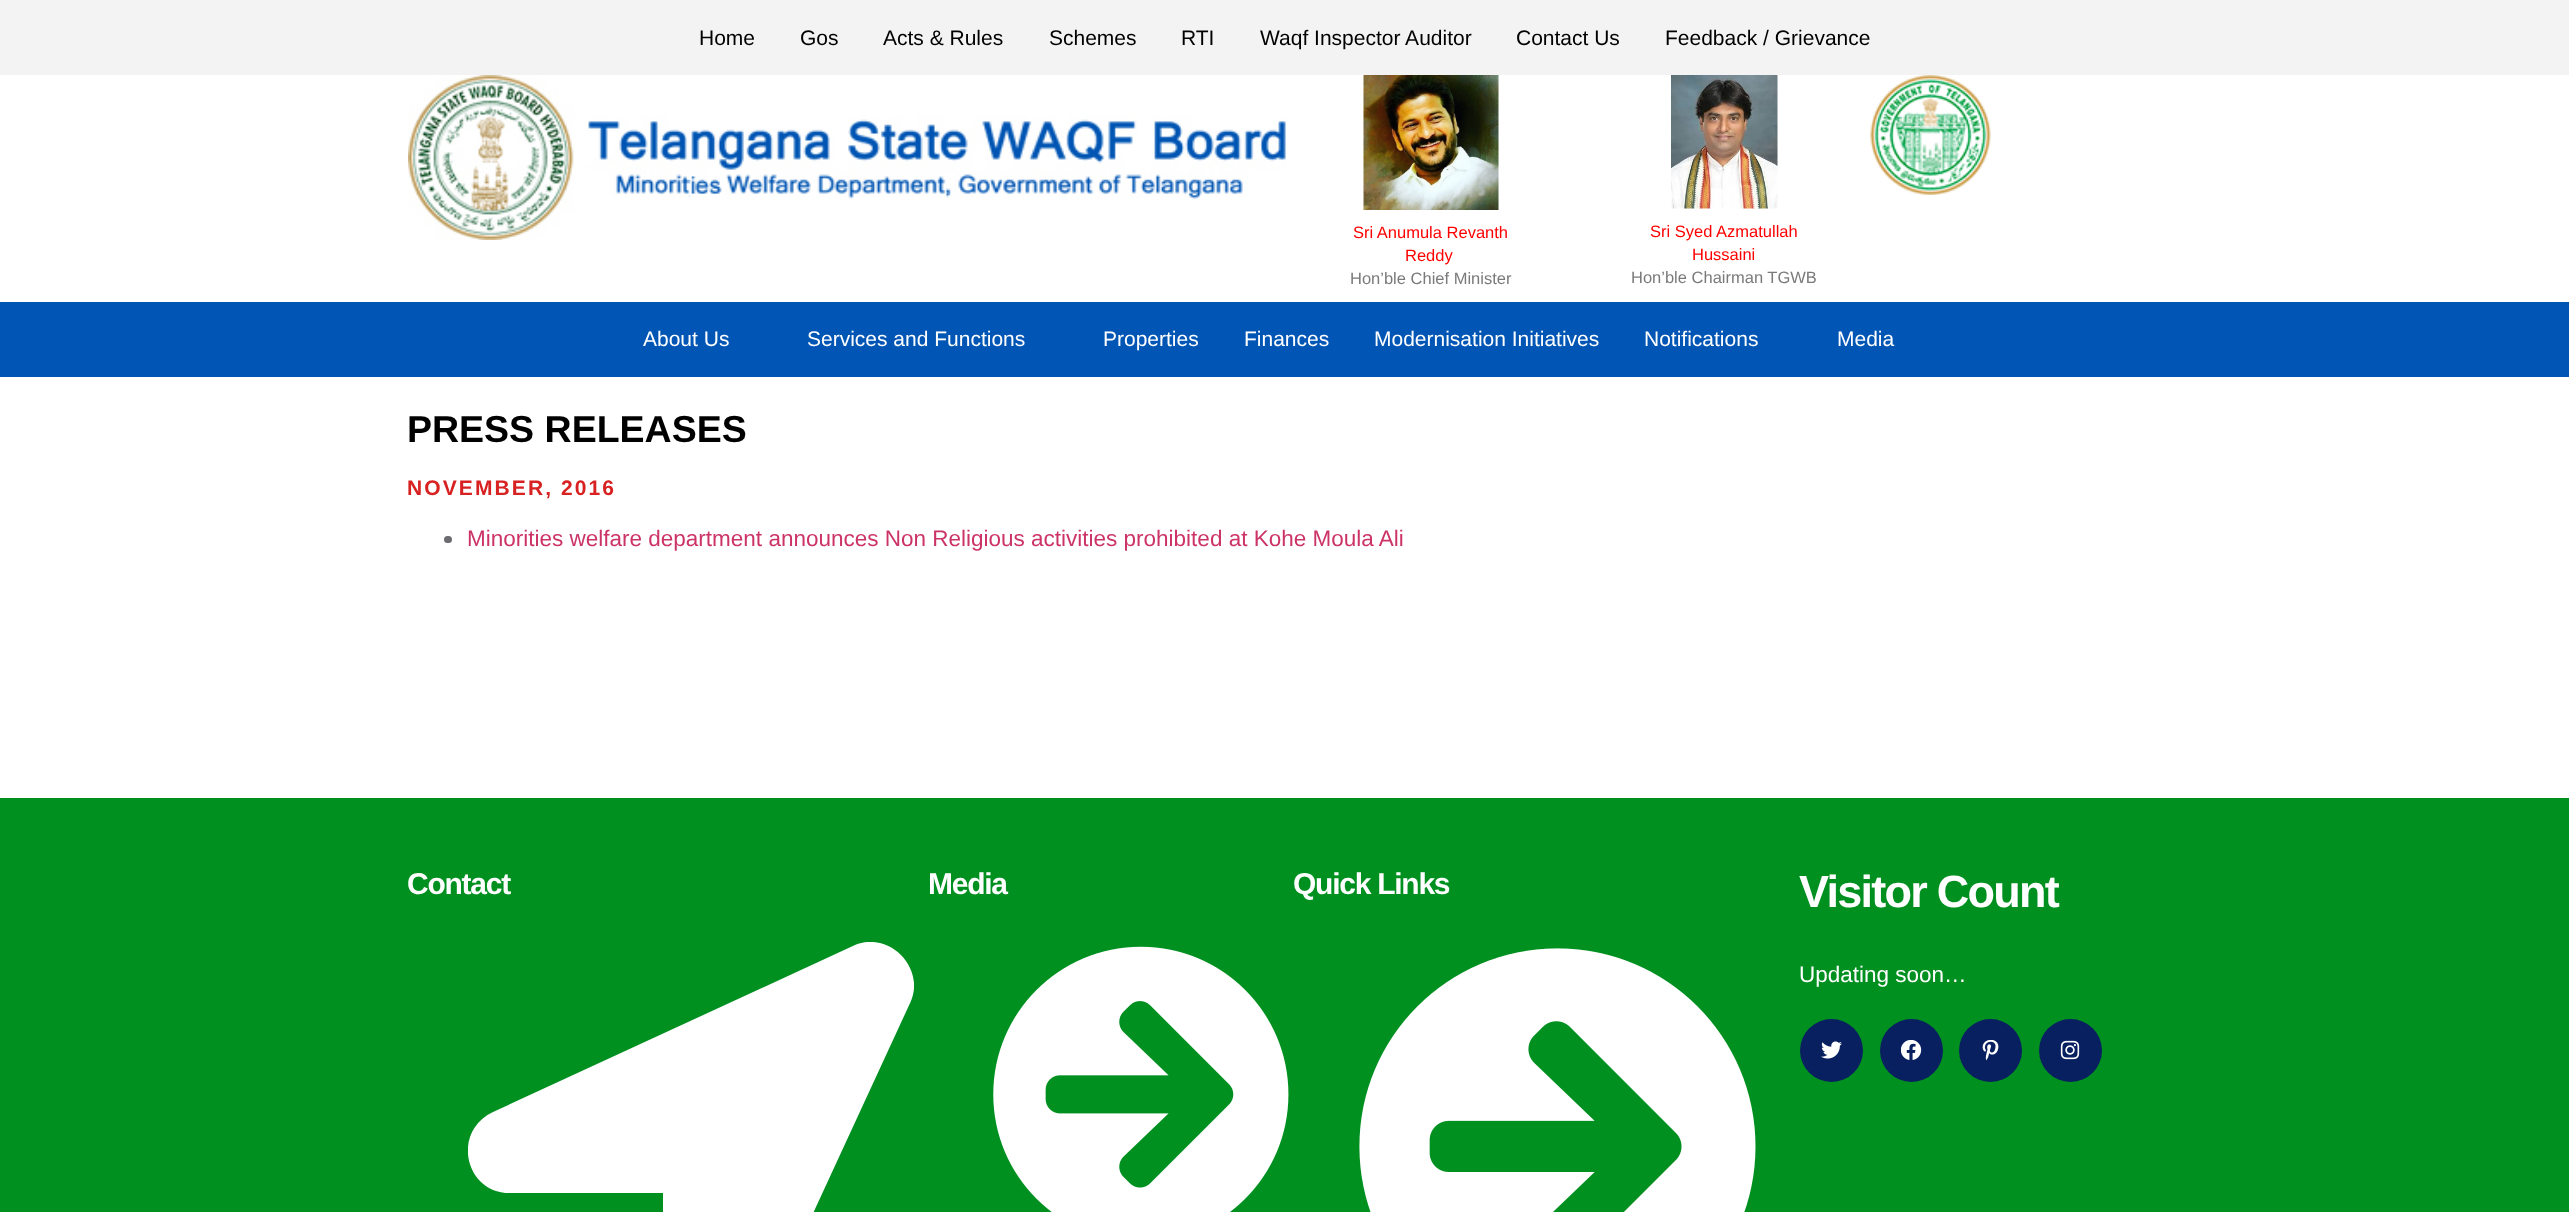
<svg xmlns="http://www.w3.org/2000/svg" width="2569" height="1212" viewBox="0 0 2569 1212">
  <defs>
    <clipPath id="clip1"><path d="M468 942h446v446H468z"/></clipPath>
  </defs>
  <rect width="100%" height="100%" fill="#fff"/>
  <path d="M0 0h2569v75H0z" fill="#f3f3f3"/>
  <image x="408" y="75" width="878" height="165" href="img/1.png"/>
  <image x="1870" y="75" width="121" height="120" href="img/2.png"/>
  <image x="1363" y="75" width="136" height="135" href="img/3.png"/>
  <image x="1671" y="75" width="107" height="134" href="img/4.png"/>
  <path d="M0 302h2569v75H0z" fill="#0155b4"/>
  <rect x="444" y="536" width="8" height="7" rx="3.5" fill="#6b6c70"/>
  <path d="M0 798h2569v414H0z" fill="#009020"/>
  <g clip-path="url(#clip1)">
    <path d="M855 945L493 1112C451 1132 465 1193 510 1193H663V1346C663 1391 724 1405 744 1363L911 1001C925 967 889 931 855 945Z" fill="#fff"/>
  </g>
  <image x="993" y="946" width="296" height="266" href="img/5.png"/>
  <image x="1359" y="948" width="397" height="264" href="img/6.png"/>
  <circle cx="1831.5" cy="1050.5" r="31.5" fill="#082060"/>
  <image x="1821" y="1041" width="21" height="18" href="img/7.png"/>
  <circle cx="1911.5" cy="1050.5" r="31.5" fill="#082060"/>
  <image x="1901" y="1040" width="21" height="20" href="img/8.png"/>
  <circle cx="1990.5" cy="1050.5" r="31.5" fill="#082060"/>
  <image x="1982" y="1040" width="17" height="21" href="img/9.png"/>
  <circle cx="2070.5" cy="1050.5" r="31.5" fill="#082060"/>
  <image x="2060" y="1040" width="20" height="20" href="img/10.png"/>
  <g font-family="Liberation Sans" font-size="21" fill="#000">
    <text x="699" y="45">Home</text>
    <text x="800" y="45">Gos</text>
    <text x="883" y="45">Acts &amp; Rules</text>
    <text x="1049" y="45">Schemes</text>
    <text x="1181" y="45">RTI</text>
    <text x="1260" y="45">Waqf Inspector Auditor</text>
    <text x="1516" y="45">Contact Us</text>
    <text x="1665" y="45">Feedback / Grievance</text>
  </g>
  <g font-family="Liberation Sans" font-size="16.5" fill="#f00">
    <text x="1353" y="238">Sri Anumula Revanth</text>
    <text x="1405" y="261">Reddy</text>
  </g>
  <text x="1350" y="284" font-family="Liberation Sans" font-size="16.5" fill="#7a7a7a">Hon’ble Chief Minister</text>
  <g font-family="Liberation Sans" font-size="16.5" fill="#f00">
    <text x="1650" y="237">Sri Syed Azmatullah</text>
    <text x="1692" y="260">Hussaini</text>
  </g>
  <text x="1631" y="283" font-family="Liberation Sans" font-size="16.5" fill="#7a7a7a">Hon’ble Chairman TGWB</text>
  <g font-family="Liberation Sans" font-size="21" fill="#fff">
    <text x="643" y="346">About Us</text>
    <text x="807" y="346">Services and Functions</text>
    <text x="1103" y="346">Properties</text>
    <text x="1244" y="346">Finances</text>
    <text x="1374" y="346">Modernisation Initiatives</text>
    <text x="1644" y="346">Notifications</text>
    <text x="1837" y="346">Media</text>
  </g>
  <text x="407" y="442" font-family="Liberation Sans" font-size="37.5" font-weight="bold" fill="#000">PRESS RELEASES</text>
  <text x="407" y="495" font-family="Liberation Sans" font-size="21" font-weight="bold" letter-spacing="2.1" fill="#d82221">NOVEMBER, 2016</text>
  <text x="467" y="546" font-family="Liberation Sans" font-size="22.5" fill="#c36">Minorities welfare department announces Non Religious activities prohibited at Kohe Moula Ali</text>
  <g font-family="Liberation Sans" font-size="30" font-weight="bold" letter-spacing="-1.25" fill="#fff">
    <text x="407" y="894">Contact</text>
    <text x="928" y="894">Media</text>
    <text x="1293" y="894">Quick Links</text>
  </g>
  <text x="1799" y="907" font-family="Liberation Sans" font-size="45" font-weight="bold" letter-spacing="-1.75" fill="#fff">Visitor Count</text>
  <text x="1799" y="982" font-family="Liberation Sans" font-size="22.5" fill="#fff">Updating soon…</text>
</svg>
